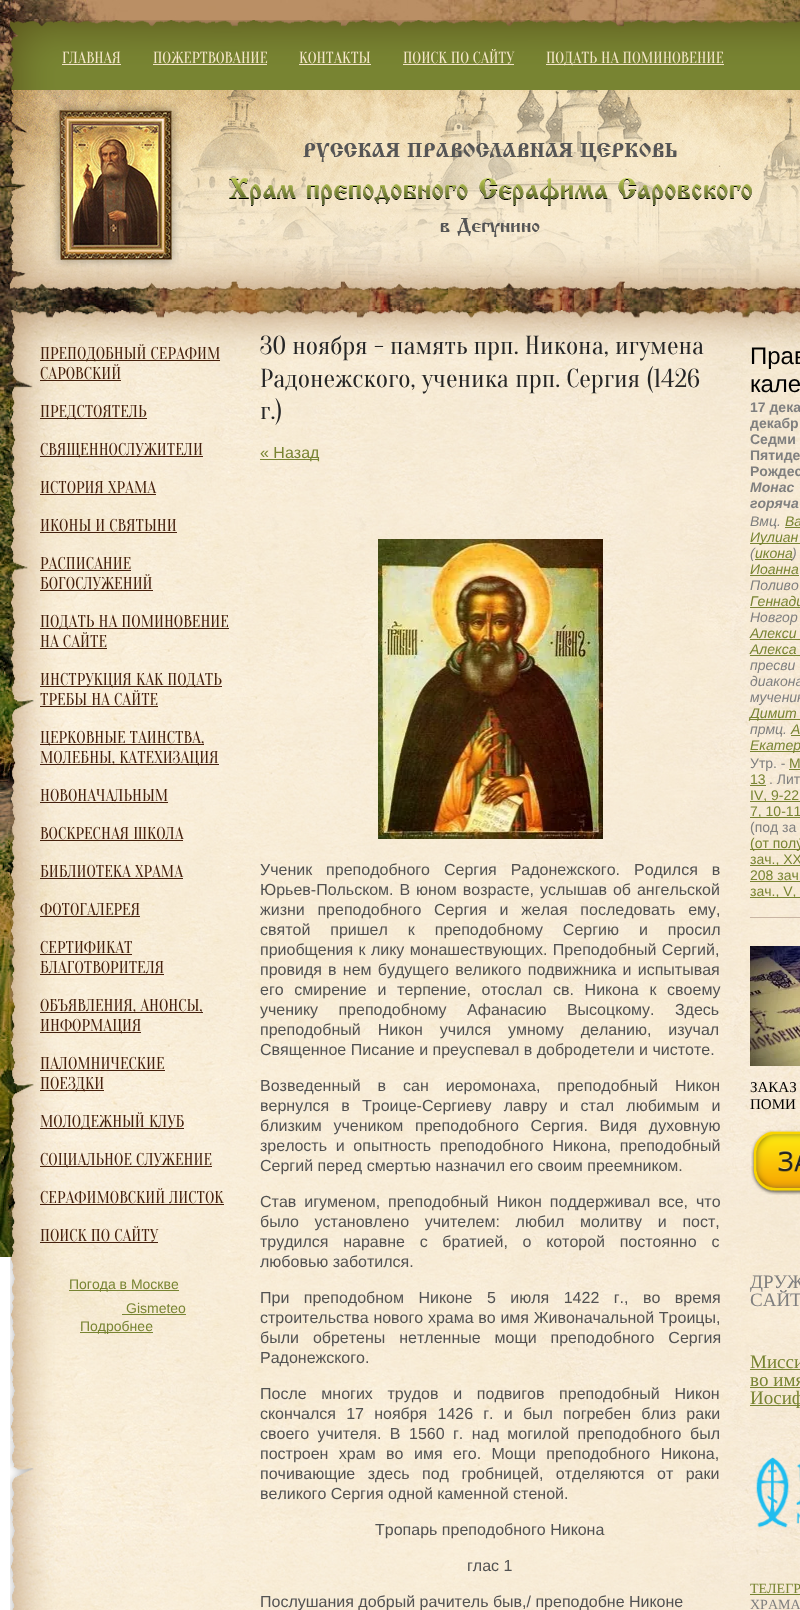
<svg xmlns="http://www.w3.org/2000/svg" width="800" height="1610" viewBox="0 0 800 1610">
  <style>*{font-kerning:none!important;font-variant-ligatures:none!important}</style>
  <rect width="100%" height="100%" fill="#fff"/>
  <image x="0" y="0" width="800" height="1257" href="img/1.png"/>
  <image x="10" y="20" width="790" height="270" href="img/2.png"/>
  <path d="M62 64h59v1H62z" fill="#f5e6c9"/>
  <path d="M153 64h114v1H153z" fill="#f5e6c9"/>
  <path d="M299 64h72v1H299z" fill="#f5e6c9"/>
  <path d="M403 64h111v1H403z" fill="#f5e6c9"/>
  <path d="M546 64h178v1H546z" fill="#f5e6c9"/>
  <path d="M59 110h113v150H59z" fill="#0000005e" filter="blur(4px)"/>
  <image x="59" y="110" width="113" height="150" href="img/3.png"/>
  <image x="229" y="143" width="523" height="94" href="img/4.png"/>
  <image x="10" y="310" width="790" height="363" href="img/5.png"/>
  <path d="M40 360h180v1H40z" fill="#46210d"/>
  <path d="M40 380h81v1H40z" fill="#46210d"/>
  <path d="M40 418h107v1H40z" fill="#46210d"/>
  <path d="M40 456h163v1H40z" fill="#46210d"/>
  <path d="M40 494h116v1H40z" fill="#46210d"/>
  <path d="M40 532h137v1H40z" fill="#46210d"/>
  <path d="M40 570h91v1H40z" fill="#46210d"/>
  <path d="M40 590h113v1H40z" fill="#46210d"/>
  <path d="M40 628h189v1H40z" fill="#46210d"/>
  <path d="M40 648h67v1H40z" fill="#46210d"/>
  <image x="10" y="673" width="790" height="937" href="img/10.png"/>
  <path d="M40 686h182v1H40z" fill="#46210d"/>
  <path d="M40 706h118v1H40z" fill="#46210d"/>
  <path d="M40 744h164v1H40z" fill="#46210d"/>
  <path d="M40 764h179v1H40z" fill="#46210d"/>
  <path d="M40 802h128v1H40z" fill="#46210d"/>
  <path d="M40 840h143v1H40z" fill="#46210d"/>
  <path d="M40 878h143v1H40z" fill="#46210d"/>
  <path d="M40 916h100v1H40z" fill="#46210d"/>
  <path d="M40 954h92v1H40z" fill="#46210d"/>
  <path d="M40 974h124v1H40z" fill="#46210d"/>
  <path d="M40 1012h163v1H40z" fill="#46210d"/>
  <path d="M40 1032h101v1H40z" fill="#46210d"/>
  <path d="M40 1070h125v1H40z" fill="#46210d"/>
  <path d="M40 1090h64v1H40z" fill="#46210d"/>
  <path d="M40 1128h144v1H40z" fill="#46210d"/>
  <path d="M40 1166h172v1H40z" fill="#46210d"/>
  <path d="M40 1204h184v1H40z" fill="#46210d"/>
  <path d="M40 1242h118v1H40z" fill="#46210d"/>
  <path d="M69 1290h110v1H69z" fill="#788432"/>
  <path d="M122 1314h64v1H122z" fill="#788432"/>
  <path d="M80 1332h73v1H80z" fill="#788432"/>
  <path d="M260 459h59v1H260z" fill="#788432"/>
  <image x="378" y="539" width="225" height="300" href="img/6.png"/>
  <path d="M785 527h15v1H785z" fill="#788432"/>
  <path d="M750 543h50v1H750z" fill="#788432"/>
  <path d="M750 575h49v1H750z" fill="#788432"/>
  <path d="M750 607h50v1H750z" fill="#788432"/>
  <path d="M750 639h50v1H750z" fill="#788432"/>
  <path d="M750 655h50v1H750z" fill="#788432"/>
  <path d="M750 719h50v1H750z" fill="#788432"/>
  <path d="M791 735h9v1H791z" fill="#788432"/>
  <path d="M750 751h50v1H750z" fill="#788432"/>
  <path d="M789 769h11v1H789z" fill="#788432"/>
  <path d="M750 785h16v1H750z" fill="#788432"/>
  <path d="M750 801h50v1H750z" fill="#788432"/>
  <path d="M750 817h50v1H750z" fill="#788432"/>
  <path d="M750 849h50v1H750z" fill="#788432"/>
  <path d="M750 865h50v1H750z" fill="#788432"/>
  <path d="M750 881h50v1H750z" fill="#788432"/>
  <path d="M750 897h50v1H750z" fill="#788432"/>
  <path d="M750 917h50v1H750z" fill="#c9b5a4"/>
  <image x="750" y="946" width="50" height="120" href="img/7.png"/>
  <image x="751" y="1130" width="49" height="65" href="img/8.png"/>
  <path d="M750 1369h50v1H750z" fill="#788432"/>
  <path d="M750 1387h50v1H750z" fill="#788432"/>
  <path d="M750 1405h50v1H750z" fill="#788432"/>
  <image x="756" y="1457" width="44" height="71" href="img/9.png"/>
  <path d="M750 1594h50v1H750z" fill="#788432"/>
  <g font-family="Oranienbaum" font-size="16" fill="#f5e6c9">
    <text x="62" y="63">ГЛАВНАЯ</text>
    <text x="153" y="63">ПОЖЕРТВОВАНИЕ</text>
    <text x="299" y="63">КОНТАКТЫ</text>
    <text x="403" y="63">ПОИСК ПО САЙТУ</text>
    <text x="546" y="63">ПОДАТЬ НА ПОМИНОВЕНИЕ</text>
  </g>
  <g font-family="Oranienbaum" font-size="17" fill="#46210d">
    <text x="40" y="359">ПРЕПОДОБНЫЙ СЕРАФИМ</text>
    <text x="40" y="379">САРОВСКИЙ</text>
    <text x="40" y="417">ПРЕДСТОЯТЕЛЬ</text>
    <text x="40" y="455">СВЯЩЕННОСЛУЖИТЕЛИ</text>
    <text x="40" y="493">ИСТОРИЯ ХРАМА</text>
    <text x="40" y="531">ИКОНЫ И СВЯТЫНИ</text>
    <text x="40" y="569">РАСПИСАНИЕ</text>
    <text x="40" y="589">БОГОСЛУЖЕНИЙ</text>
    <text x="40" y="627">ПОДАТЬ НА ПОМИНОВЕНИЕ</text>
    <text x="40" y="647">НА САЙТЕ</text>
    <text x="40" y="685">ИНСТРУКЦИЯ КАК ПОДАТЬ</text>
    <text x="40" y="705">ТРЕБЫ НА САЙТЕ</text>
    <text x="40" y="743">ЦЕРКОВНЫЕ ТАИНСТВА,</text>
    <text x="40" y="763">МОЛЕБНЫ, КАТЕХИЗАЦИЯ</text>
    <text x="40" y="801">НОВОНАЧАЛЬНЫМ</text>
    <text x="40" y="839">ВОСКРЕСНАЯ ШКОЛА</text>
    <text x="40" y="877">БИБЛИОТЕКА ХРАМА</text>
    <text x="40" y="915">ФОТОГАЛЕРЕЯ</text>
    <text x="40" y="953">СЕРТИФИКАТ</text>
    <text x="40" y="973">БЛАГОТВОРИТЕЛЯ</text>
    <text x="40" y="1011">ОБЪЯВЛЕНИЯ, АНОНСЫ,</text>
    <text x="40" y="1031">ИНФОРМАЦИЯ</text>
    <text x="40" y="1069">ПАЛОМНИЧЕСКИЕ</text>
    <text x="40" y="1089">ПОЕЗДКИ</text>
    <text x="40" y="1127">МОЛОДЕЖНЫЙ КЛУБ</text>
    <text x="40" y="1165">СОЦИАЛЬНОЕ СЛУЖЕНИЕ</text>
    <text x="40" y="1203">СЕРАФИМОВСКИЙ ЛИСТОК</text>
    <text x="40" y="1241">ПОИСК ПО САЙТУ</text>
  </g>
  <g font-family="Liberation Sans" font-size="14" fill="#788432">
    <text x="69" y="1289">Погода в Москве</text>
    <text x="126" y="1313">Gismeteo</text>
    <text x="80" y="1331">Подробнее</text>
  </g>
  <g font-family="Oranienbaum" font-size="26" fill="#262626">
    <text x="260" y="354">30 ноября - память прп. Никона, игумена</text>
    <text x="260" y="387">Радонежского, ученика прп. Сергия (1426</text>
    <text x="260" y="419">г.)</text>
  </g>
  <text x="260" y="458" font-family="Liberation Sans" font-size="16" fill="#788432">« Назад</text>
  <g font-family="Liberation Sans" font-size="16" fill="#525252">
    <text x="260" y="875" word-spacing="9.5">Ученик преподобного Сергия Радонежского. Родился в</text>
    <text x="260" y="895" word-spacing="1.5">Юрьев-Польском. В юном возрасте, услышав об ангельской</text>
    <text x="260" y="915" word-spacing="8.25">жизни преподобного Сергия и желая последовать ему,</text>
    <text x="260" y="935" word-spacing="15.5">святой пришел к преподобному Сергию и просил</text>
    <text x="260" y="955" word-spacing="1">приобщения к лику монашествующих. Преподобный Сергий,</text>
    <text x="260" y="975" word-spacing="1.75">провидя в нем будущего великого подвижника и испытывая</text>
    <text x="260" y="995" word-spacing="6.25">его смирение и терпение, отослал св. Никона к своему</text>
    <text x="260" y="1015" word-spacing="16">ученику преподобному Афанасию Высоцкому. Здесь</text>
    <text x="260" y="1035" word-spacing="12.5">преподобный Никон учился умному деланию, изучал</text>
    <text x="260" y="1055">Священное Писание и преуспевал в добродетели и чистоте.</text>
    <text x="260" y="1091" word-spacing="12.5">Возведенный в сан иеромонаха, преподобный Никон</text>
    <text x="260" y="1111" word-spacing="7.75">вернулся в Троице-Сергиеву лавру и стал любимым и</text>
    <text x="260" y="1131" word-spacing="7.25">близким учеником преподобного Сергия. Видя духовную</text>
    <text x="260" y="1151" word-spacing="4.25">зрелость и опытность преподобного Никона, преподобный</text>
    <text x="260" y="1171">Сергий перед смертью назначил его своим преемником.</text>
    <text x="260" y="1207" word-spacing="3.5">Став игуменом, преподобный Никон поддерживал все, что</text>
    <text x="260" y="1227" word-spacing="11.25">было установлено учителем: любил молитву и пост,</text>
    <text x="260" y="1247" word-spacing="10.25">трудился наравне с братией, о которой постоянно с</text>
    <text x="260" y="1267">любовью заботился.</text>
    <text x="260" y="1303" word-spacing="10">При преподобном Никоне 5 июля 1422 г., во время</text>
    <text x="260" y="1323" word-spacing="0.25">строительства нового храма во имя Живоначальной Троицы,</text>
    <text x="260" y="1343" word-spacing="9.5">были обретены нетленные мощи преподобного Сергия</text>
    <text x="260" y="1363">Радонежского.</text>
    <text x="260" y="1399" word-spacing="10.25">После многих трудов и подвигов преподобный Никон</text>
    <text x="260" y="1419" word-spacing="5.75">скончался 17 ноября 1426 г. и был погребен близ раки</text>
    <text x="260" y="1439" word-spacing="4">своего учителя. В 1560 г. над могилой преподобного</text>
    <text x="690" y="1439" word-spacing="4">был</text>
    <text x="260" y="1459" word-spacing="6">построен храм во имя его. Мощи преподобного Никона,</text>
    <text x="260" y="1479" word-spacing="8">почивающие здесь под гробницей, отделяются</text>
    <text x="657" y="1479" word-spacing="8">от раки</text>
    <text x="260" y="1499">великого Сергия одной каменной стеной.</text>
    <text x="375" y="1535">Тропарь преподобного Никона</text>
    <text x="467" y="1571">глас 1</text>
    <text x="260" y="1607">Послушания добрый рачитель быв,/ преподобне Никоне</text>
  </g>
  <g font-family="Liberation Sans" font-size="24" fill="#000">
    <text x="750" y="364">Прав</text>
    <text x="750" y="392">кале</text>
  </g>
  <g font-family="Liberation Sans" font-size="14" font-weight="bold" fill="#7f7f7f">
    <text x="750" y="412">17 дека</text>
    <text x="750" y="428">декабр</text>
    <text x="750" y="444">Седми</text>
    <text x="750" y="460">Пятиде</text>
    <text x="750" y="476">Рождес</text>
  </g>
  <g font-family="Liberation Sans" font-size="14" font-weight="bold" font-style="italic" fill="#7f7f7f">
    <text x="750" y="492">Монас</text>
    <text x="750" y="508">горяча</text>
  </g>
  <text x="750" y="526" font-family="Liberation Sans" font-size="14" font-style="italic" fill="#7f7f7f">Вмц.</text>
  <g font-family="Liberation Sans" font-size="14" font-style="italic" fill="#788432">
    <text x="785" y="526">Ва</text>
    <text x="750" y="542">Иулиан</text>
  </g>
  <text x="750" y="558" font-family="Liberation Sans" font-size="14" font-style="italic" fill="#7f7f7f">(</text>
  <text x="755" y="558" font-family="Liberation Sans" font-size="14" font-style="italic" fill="#788432">икона</text>
  <path d="M755 559h37v1H755z" fill="#788432"/>
  <text x="792" y="558" font-family="Liberation Sans" font-size="14" font-style="italic" fill="#7f7f7f">)</text>
  <text x="750" y="574" font-family="Liberation Sans" font-size="14" font-style="italic" fill="#788432">Иоанна</text>
  <text x="750" y="590" font-family="Liberation Sans" font-size="14" font-style="italic" fill="#7f7f7f">Поливо</text>
  <text x="750" y="606" font-family="Liberation Sans" font-size="14" font-style="italic" fill="#788432">Геннади</text>
  <text x="750" y="622" font-family="Liberation Sans" font-size="14" font-style="italic" fill="#7f7f7f">Новгор</text>
  <g font-family="Liberation Sans" font-size="14" font-style="italic" fill="#788432">
    <text x="750" y="638">Алекси</text>
    <text x="750" y="654">Алекса</text>
  </g>
  <g font-family="Liberation Sans" font-size="14" font-style="italic" fill="#7f7f7f">
    <text x="750" y="670">пресви</text>
    <text x="750" y="686">диакона</text>
    <text x="750" y="702">мученик</text>
  </g>
  <text x="750" y="718" font-family="Liberation Sans" font-size="14" font-style="italic" fill="#788432">Димит</text>
  <text x="750" y="734" font-family="Liberation Sans" font-size="14" font-style="italic" fill="#7f7f7f">прмц.</text>
  <g font-family="Liberation Sans" font-size="14" font-style="italic" fill="#788432">
    <text x="791" y="734">А</text>
    <text x="750" y="750">Екатер</text>
  </g>
  <text x="750" y="768" font-family="Liberation Sans" font-size="14" fill="#7f7f7f">Утр. -</text>
  <g font-family="Liberation Sans" font-size="14" fill="#788432">
    <text x="789" y="768">М</text>
    <text x="750" y="784">13</text>
  </g>
  <text x="769" y="784" font-family="Liberation Sans" font-size="14" fill="#7f7f7f">. Лит</text>
  <g font-family="Liberation Sans" font-size="14" fill="#788432">
    <text x="750" y="800">IV, 9-22</text>
    <text x="750" y="816">7, 10-11</text>
  </g>
  <text x="750" y="832" font-family="Liberation Sans" font-size="14" fill="#7f7f7f">(под за</text>
  <g font-family="Liberation Sans" font-size="14" fill="#788432">
    <text x="750" y="848">(от полу́</text>
    <text x="750" y="864">зач., XX</text>
    <text x="750" y="880">208 зач</text>
    <text x="750" y="896">зач., V,</text>
  </g>
  <g font-family="Liberation Serif" font-size="15" fill="#000">
    <text x="750" y="1092">ЗАКАЗ</text>
    <text x="750" y="1109">ПОМИ</text>
  </g>
  <g font-family="Liberation Serif" font-size="19" fill="#7f7f7f">
    <text x="750" y="1288">ДРУЖ</text>
    <text x="750" y="1306">САЙТ</text>
  </g>
  <g font-family="Liberation Serif" font-size="19" fill="#788432">
    <text x="750" y="1368">Мисси</text>
    <text x="750" y="1386">во имя</text>
    <text x="750" y="1404">Иосиф</text>
  </g>
  <text x="750" y="1593" font-family="Liberation Serif" font-size="14" fill="#788432">ТЕЛЕГР</text>
  <text x="750" y="1609" font-family="Liberation Serif" font-size="14" fill="#7f7f7f">ХРАМА</text>
</svg>
